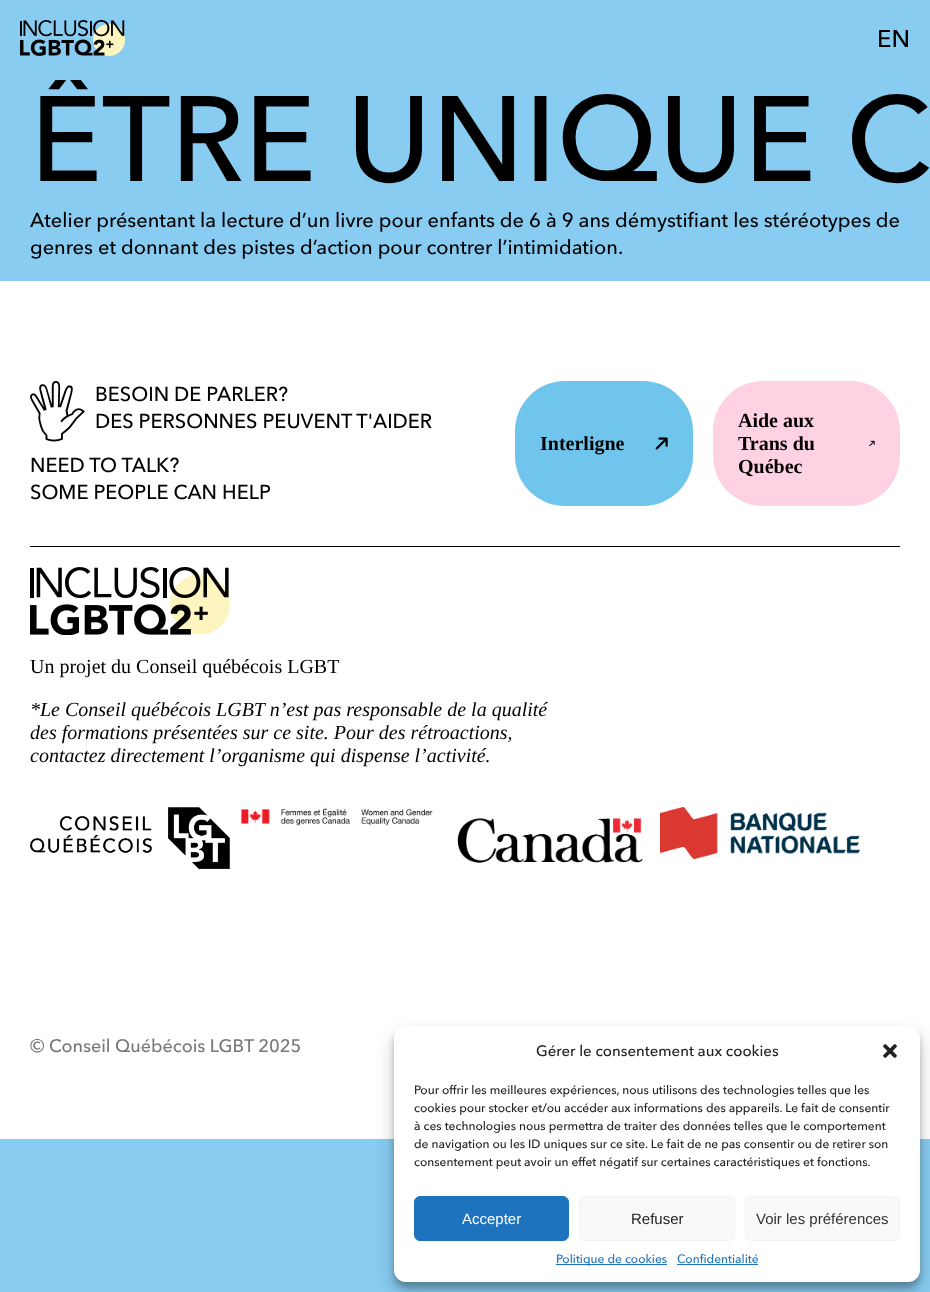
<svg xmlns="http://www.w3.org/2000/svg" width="930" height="1292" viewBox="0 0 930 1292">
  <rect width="100%" height="100%" fill="#88ccf1"/>
  <image x="20" y="20" width="105" height="36" href="img/1.png"/>
  <path d="M0 281h930v858H0z" fill="#fff"/>
  <path d="M30 546h870v1H30z" fill="#000"/>
  <image x="30" y="381" width="55" height="61" href="img/2.png"/>
  <rect x="515" y="381" width="178" height="125" rx="50" fill="#6fc5ec"/>
  <image x="655" y="437" width="13" height="13" href="img/3.png"/>
  <rect x="713" y="381" width="187" height="125" rx="50" fill="#ffd2e3"/>
  <image x="869" y="440" width="6" height="7" href="img/4.png"/>
  <image x="30" y="567" width="200" height="68" href="img/5.png"/>
  <image x="30" y="807" width="200" height="62" href="img/6.png"/>
  <image x="240" y="807" width="193" height="19" href="img/7.png"/>
  <image x="457" y="818" width="186" height="45" href="img/8.png"/>
  <image x="660" y="807" width="200" height="52" href="img/9.png"/>
  <rect x="394" y="1032" width="526" height="256" rx="12" fill="#0000003b" filter="blur(3px)"/>
  <rect x="394" y="1036" width="526" height="256" rx="12" fill="#00000030" filter="blur(10px)"/>
  <rect x="394" y="1026" width="526" height="256" rx="12" fill="#fff"/>
  <image x="883" y="1044" width="14" height="14" href="img/10.png"/>
  <rect x="414.5" y="1196.5" width="154" height="44" rx="5.5" fill="#1e73be" stroke="#1e73be"/>
  <rect x="579.5" y="1196.5" width="155" height="44" rx="5.5" fill="#f9f9f9" stroke="#f2f2f2"/>
  <rect x="745.5" y="1196.5" width="154" height="44" rx="5.5" fill="#f9f9f9" stroke="#f2f2f2"/>
  <path d="M556 1264h111v1H556z" fill="#1e73be"/>
  <path d="M677 1264h81v1H677z" fill="#1e73be"/>
  <text x="877" y="47" font-family="Avenir Next" font-size="24" font-weight="500" fill="#000">EN</text>
  <text x="30" y="181" font-family="Avenir Next" font-size="120" font-weight="500" fill="#000">ÊTRE UNIQUE C</text>
  <path d="M55 72h26v8H55z" fill="#88ccf1"/>
  <g font-family="Avenir Next" font-size="20" font-weight="500" fill="#000">
    <text x="30" y="227">Atelier présentant la lecture d’un livre pour enfants de 6 à 9 ans démystifiant les stéréotypes de</text>
    <text x="30" y="254">genres et donnant des pistes d’action pour contrer l’intimidation.</text>
    <text x="95" y="401">BESOIN DE PARLER?</text>
    <text x="95" y="428">DES PERSONNES PEUVENT T'AIDER</text>
    <text x="30" y="472">NEED TO TALK?</text>
    <text x="30" y="499">SOME PEOPLE CAN HELP</text>
  </g>
  <g font-family="Liberation Serif" font-size="20" font-weight="bold" fill="#000">
    <text x="540" y="450">Interligne</text>
    <text x="738" y="427">Aide aux</text>
    <text x="738" y="450">Trans du</text>
    <text x="738" y="473">Québec</text>
  </g>
  <text x="30" y="673" font-family="Liberation Serif" font-size="20" fill="#000">Un projet du Conseil québécois LGBT</text>
  <g font-family="Liberation Serif" font-size="20" font-style="italic" fill="#000">
    <text x="30" y="716">*Le Conseil québécois LGBT n’est pas responsable de la qualité</text>
    <text x="30" y="739">des formations présentées sur ce site. Pour des rétroactions,</text>
    <text x="30" y="762">contactez directement l’organisme qui dispense l’activité.</text>
  </g>
  <text x="30" y="1052" font-family="Avenir Next" font-size="18" font-weight="500" fill="#787878">© Conseil Québécois LGBT 2025</text>
  <text x="536" y="1056" font-family="Avenir Next" font-size="15" font-weight="500" fill="#222">Gérer le consentement aux cookies</text>
  <g font-family="Avenir Next" font-size="12" font-weight="500" fill="#222">
    <text x="414" y="1094">Pour offrir les meilleures expériences, nous utilisons des technologies telles que les</text>
    <text x="414" y="1112">cookies pour stocker et/ou accéder aux informations des appareils. Le fait de consentir</text>
    <text x="414" y="1130">à ces technologies nous permettra de traiter des données telles que le comportement</text>
    <text x="414" y="1148">de navigation ou les ID uniques sur ce site. Le fait de ne pas consentir ou de retirer son</text>
    <text x="414" y="1166">consentement peut avoir un effet négatif sur certaines caractéristiques et fonctions.</text>
  </g>
  <text x="462" y="1224" font-family="Liberation Sans" font-size="15" fill="#fff">Accepter</text>
  <text x="631" y="1224" font-family="Liberation Sans" font-size="15" fill="#222">Refuser</text>
  <text x="756" y="1224" font-family="Liberation Sans" font-size="15" fill="#333">Voir les préférences</text>
  <g font-family="Avenir Next" font-size="12" font-weight="500" fill="#1e73be">
    <text x="556" y="1263">Politique de cookies</text>
    <text x="677" y="1263">Confidentialité</text>
  </g>
</svg>
